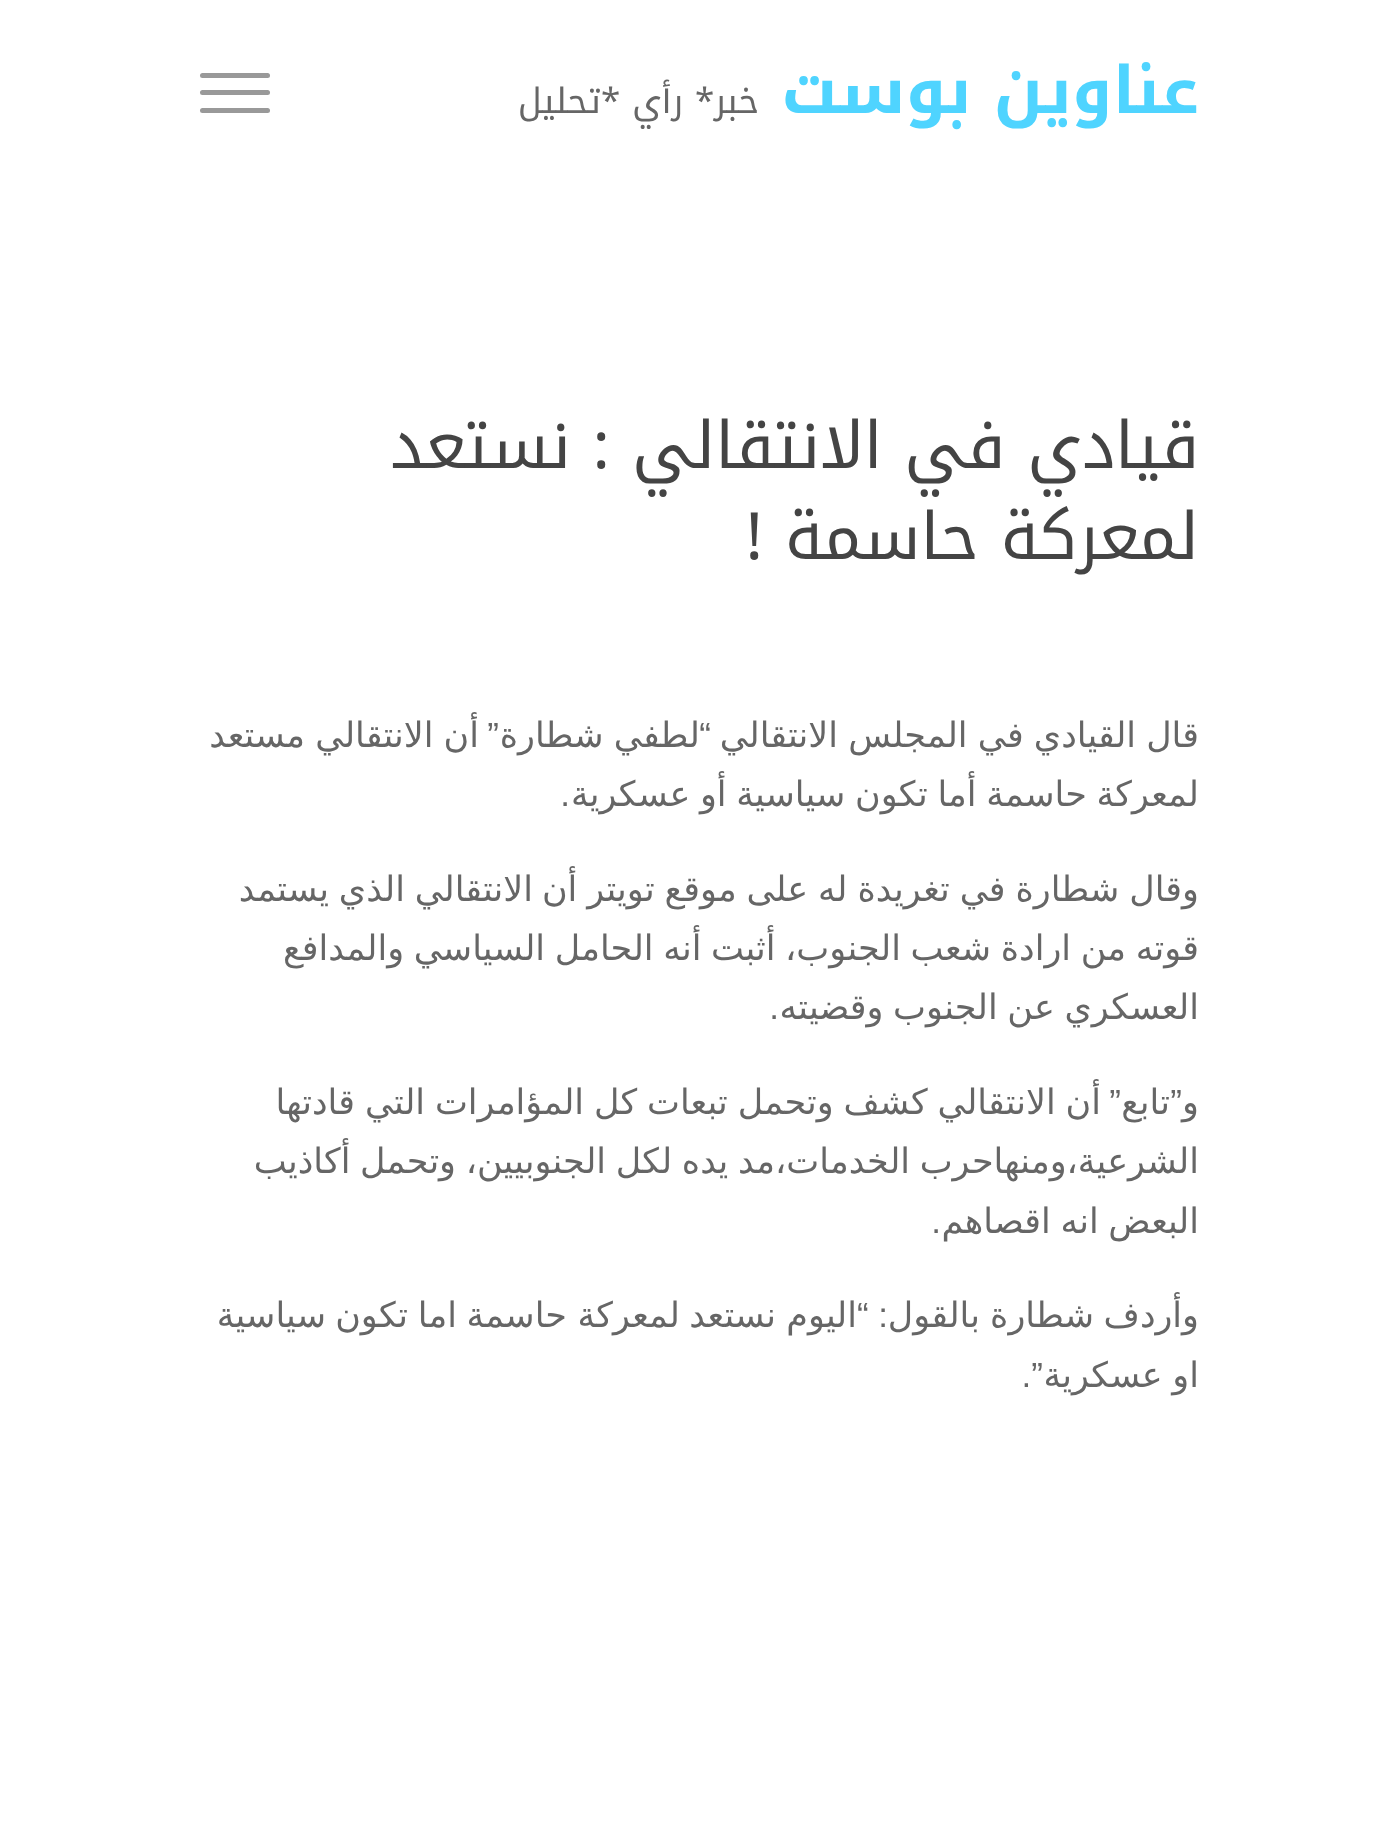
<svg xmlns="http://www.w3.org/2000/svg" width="1396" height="1830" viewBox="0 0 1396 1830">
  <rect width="100%" height="100%" fill="#fff"/>
  <rect x="200" y="108" width="70" height="5" rx="2.5" fill="#999"/>
  <rect x="200" y="73" width="70" height="5" rx="2.5" fill="#999"/>
  <rect x="200" y="90" width="70" height="5" rx="2.5" fill="#999"/>
  <text x="1199" y="113" font-family="Noto Kufi Arabic" font-size="65" font-weight="bold" direction="rtl" fill="#4fd4ff">عناوين بوست</text>
  <text x="759" y="113" font-family="Noto Kufi Arabic" font-size="35" direction="rtl" fill="#666">خبر* رأي *تحليل</text>
  <g font-family="Noto Kufi Arabic" font-size="65" direction="rtl" fill="#444">
    <text x="1199" y="468">قيادي في الانتقالي : نستعد</text>
    <text x="1199" y="559">لمعركة حاسمة !</text>
  </g>
  <text x="1199" y="747" word-spacing="-1" font-family="DejaVu Sans" font-size="35" direction="rtl" fill="#666">قال القيادي في المجلس الانتقالي</text>
  <text x="711" y="747" font-family="Liberation Sans" font-size="35" direction="rtl" fill="#666">“</text>
  <text x="700" y="747" word-spacing="-1" font-family="DejaVu Sans" font-size="35" direction="rtl" fill="#666">لطفي شطارة</text>
  <text x="499" y="747" font-family="Liberation Sans" font-size="35" direction="rtl" fill="#666">”</text>
  <g font-family="DejaVu Sans" font-size="35" direction="rtl" fill="#666">
    <text x="479" y="747" word-spacing="-1">أن الانتقالي مستعد</text>
    <text x="1199" y="806" word-spacing="-1.5">لمعركة حاسمة أما تكون سياسية أو عسكرية</text>
  </g>
  <text x="570" y="806" font-family="Liberation Sans" font-size="35" direction="rtl" fill="#666">.</text>
  <g font-family="DejaVu Sans" font-size="35" direction="rtl" fill="#666">
    <text x="1199" y="901" word-spacing="-1.25">وقال شطارة في تغريدة له على موقع تويتر أن</text>
    <text x="533" y="901" word-spacing="-1.25">الانتقالي الذي يستمد</text>
    <text x="1199" y="960" word-spacing="-1.5">قوته من ارادة شعب الجنوب، أثبت أنه الحامل السياسي والمدافع</text>
    <text x="1199" y="1019" word-spacing="-1.5">العسكري عن الجنوب وقضيته</text>
  </g>
  <g font-family="Liberation Sans" font-size="35" direction="rtl" fill="#666">
    <text x="779" y="1019">.</text>
    <text x="1182" y="1114">”</text>
  </g>
  <text x="1170" y="1114" font-family="DejaVu Sans" font-size="35" direction="rtl" fill="#666">تابع</text>
  <text x="1121" y="1114" font-family="Liberation Sans" font-size="35" direction="rtl" fill="#666">”</text>
  <g font-family="DejaVu Sans" font-size="35" direction="rtl" fill="#666">
    <text x="1101" y="1114" word-spacing="-1.25">أن الانتقالي كشف وتحمل تبعات كل المؤامرات التي قادتها</text>
    <text x="1199" y="1114">و</text>
    <text x="1199" y="1173" word-spacing="-1.5">الشرعية،ومنهاحرب الخدمات،مد يده لكل الجنوبيين، وتحمل أكاذيب</text>
    <text x="1199" y="1233" word-spacing="-1.5">البعض انه اقصاهم</text>
  </g>
  <text x="941" y="1233" font-family="Liberation Sans" font-size="35" direction="rtl" fill="#666">.</text>
  <g font-family="DejaVu Sans" font-size="35" direction="rtl" fill="#666">
    <text x="1199" y="1327">وأردف</text>
    <text x="1094" y="1327">شطارة</text>
    <text x="980" y="1327">بالقول</text>
  </g>
  <text x="888" y="1327" font-family="Liberation Sans" font-size="35" direction="rtl" fill="#666">: “</text>
  <g font-family="DejaVu Sans" font-size="35" direction="rtl" fill="#666">
    <text x="857" y="1327">اليوم</text>
    <text x="776" y="1327">نستعد</text>
    <text x="680" y="1327">لمعركة</text>
    <text x="567" y="1327">حاسمة</text>
    <text x="457" y="1327">اما</text>
    <text x="408" y="1327">تكون</text>
    <text x="326" y="1327">سياسية</text>
    <text x="1199" y="1387" word-spacing="-1.5">او عسكرية</text>
  </g>
  <text x="1043" y="1387" font-family="Liberation Sans" font-size="35" direction="rtl" fill="#666">”.</text>
</svg>
